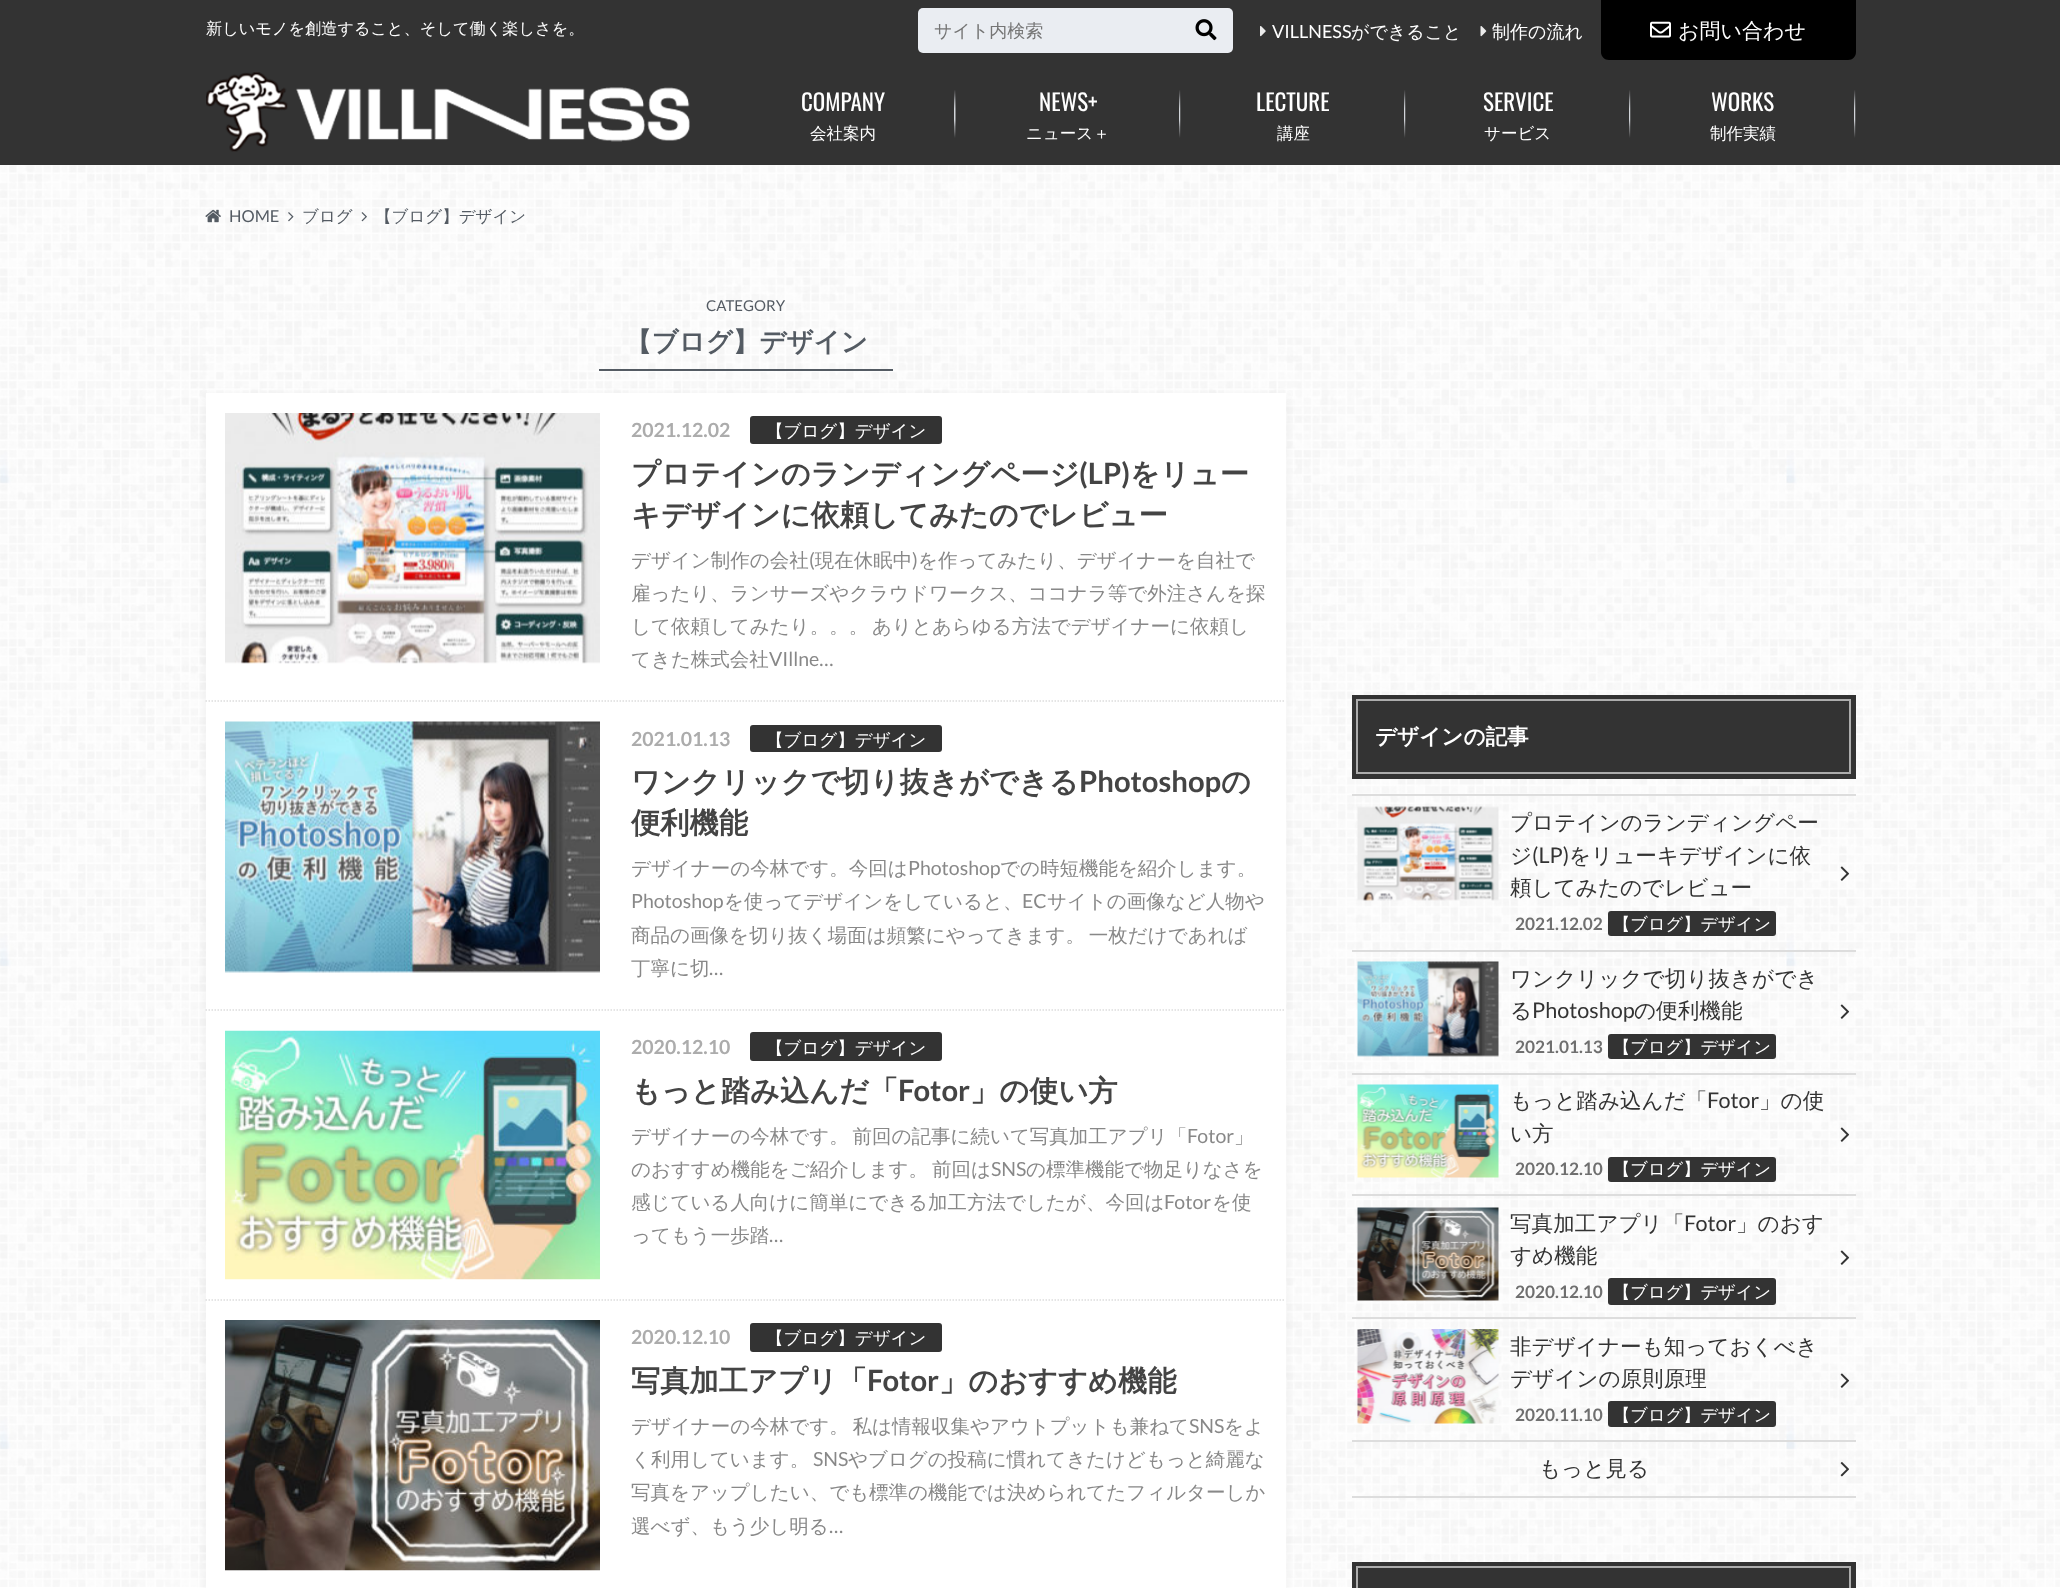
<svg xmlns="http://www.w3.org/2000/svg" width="2060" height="1588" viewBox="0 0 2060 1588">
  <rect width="100%" height="100%" fill="#fff"/>
  <image x="0" y="165" width="2060" height="1422" href="img/1.png"/>
  <path d="M0 0h2060v165H0z" fill="#333"/>
  <rect x="918" y="8" width="315" height="45" rx="5" fill="#eaedf2"/>
  <image x="1195" y="19" width="22" height="22" href="img/2.png"/>
  <image x="1260" y="26" width="6" height="11" href="img/3.png"/>
  <image x="1480" y="26" width="7" height="11" href="img/4.png"/>
  <path d="M1601 0H1856V52C1856 56.5 1852.5 60 1848 60H1609C1604.5 60 1601 56.5 1601 52Z" fill="#000"/>
  <image x="1650" y="21" width="21" height="17" href="img/5.png"/>
  <image x="206" y="72" width="484" height="80" href="img/6.png"/>
  <image x="954" y="90" width="2" height="48" href="img/7.png"/>
  <image x="1179" y="90" width="2" height="48" href="img/8.png"/>
  <image x="1404" y="90" width="2" height="48" href="img/8.png"/>
  <image x="1629" y="90" width="2" height="48" href="img/8.png"/>
  <image x="1854" y="90" width="2" height="48" href="img/8.png"/>
  <image x="205" y="209" width="16" height="14" href="img/9.png"/>
  <image x="288" y="212" width="6" height="10" href="img/10.png"/>
  <image x="361" y="212" width="6" height="10" href="img/11.png"/>
  <path d="M599 369h294v2H599z" fill="#545b63"/>
  <path d="M206 396h1080v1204H206z" fill="#8a8a8a26" filter="blur(4px)"/>
  <path d="M206 393h1080v1195H206z" fill="#fff"/>
  <path d="M205.5 701H1285.5" fill="none" stroke="#ddd" stroke-width="1.5" stroke-dasharray="1.5 1.5"/>
  <image x="225" y="413" width="375" height="251" href="img/12.png"/>
  <rect x="750" y="416" width="192" height="28" rx="3" fill="#333"/>
  <path d="M205.5 1010H1285.5" fill="none" stroke="#ddd" stroke-width="1.5" stroke-dasharray="1.5 1.5"/>
  <image x="225" y="721" width="375" height="252" href="img/13.png"/>
  <rect x="750" y="725" width="192" height="27" rx="3" fill="#333"/>
  <path d="M205.5 1300H1285.5" fill="none" stroke="#ddd" stroke-width="1.5" stroke-dasharray="1.5 1.5"/>
  <image x="225" y="1030" width="375" height="250" href="img/14.png"/>
  <rect x="750" y="1032" width="192" height="29" rx="3" fill="#333"/>
  <image x="225" y="1320" width="375" height="251" href="img/15.png"/>
  <rect x="750" y="1323" width="192" height="29" rx="3" fill="#333"/>
  <path d="M1352 695h504v84H1352z" fill="#333"/>
  <path d="M1357 700h493v73H1357z" fill="none" stroke="#adadad" stroke-width="2"/>
  <path d="M1352 794h504v2H1352z" fill="#ddd"/>
  <path d="M1352 950h504v2H1352z" fill="#ddd"/>
  <image x="1357" y="806" width="142" height="95" href="img/16.png"/>
  <image x="1840" y="866" width="10" height="15" href="img/17.png"/>
  <rect x="1608" y="911" width="168" height="25" rx="3" fill="#333"/>
  <path d="M1352 1073h504v2H1352z" fill="#ddd"/>
  <image x="1357" y="961" width="142" height="96" href="img/18.png"/>
  <image x="1840" y="1004" width="10" height="15" href="img/19.png"/>
  <rect x="1608" y="1034" width="168" height="25" rx="3" fill="#333"/>
  <path d="M1352 1194h504v2H1352z" fill="#ddd"/>
  <image x="1357" y="1084" width="142" height="94" href="img/20.png"/>
  <image x="1840" y="1127" width="10" height="15" href="img/21.png"/>
  <rect x="1608" y="1157" width="168" height="25" rx="3" fill="#333"/>
  <path d="M1352 1317h504v2H1352z" fill="#ddd"/>
  <image x="1357" y="1207" width="142" height="94" href="img/22.png"/>
  <image x="1840" y="1250" width="10" height="15" href="img/23.png"/>
  <rect x="1608" y="1278" width="168" height="27" rx="3" fill="#333"/>
  <path d="M1352 1440h504v2H1352z" fill="#ddd"/>
  <image x="1357" y="1329" width="142" height="95" href="img/24.png"/>
  <image x="1840" y="1373" width="10" height="15" href="img/25.png"/>
  <rect x="1608" y="1401" width="168" height="26" rx="3" fill="#333"/>
  <path d="M1352 1496h504v2H1352z" fill="#ddd"/>
  <image x="1840" y="1462" width="10" height="15" href="img/26.png"/>
  <path d="M1352 1562h504v26H1352z" fill="#333"/>
  <path d="M1357 1567h493v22H1357z" fill="none" stroke="#adadad" stroke-width="2"/>
  <text x="206" y="34" font-family="WenQuanYi Zen Hei" font-size="16.2" font-weight="500" fill="#fff">新しいモノを創造すること、そして働く楽しさを。</text>
  <text x="934" y="37" font-family="WenQuanYi Zen Hei" font-size="18" font-weight="500" fill="#757575">サイト内検索</text>
  <text x="1272" y="38" font-family="Lato" font-size="18" fill="#fff">VILLNESS</text>
  <g font-family="WenQuanYi Zen Hei" font-size="18" font-weight="500" fill="#fff">
    <text x="1351" y="38">ができること</text>
    <text x="1492" y="38">制作の流れ</text>
  </g>
  <text x="1678" y="38" font-family="WenQuanYi Zen Hei" font-size="21" font-weight="500" fill="#fff">お問い合わせ</text>
  <text x="801" y="111" font-family="Oswald" font-size="23" fill="#fff">COMPANY</text>
  <text x="810" y="139" font-family="WenQuanYi Zen Hei" font-size="16.5" font-weight="500" fill="#fff">会社案内</text>
  <text x="1039" y="111" font-family="Oswald" font-size="23" fill="#fff">NEWS+</text>
  <text x="1026" y="139" font-family="WenQuanYi Zen Hei" font-size="16.5" font-weight="500" fill="#fff">ニュース＋</text>
  <text x="1256" y="111" font-family="Oswald" font-size="23" fill="#fff">LECTURE</text>
  <text x="1277" y="139" font-family="WenQuanYi Zen Hei" font-size="16.5" font-weight="500" fill="#fff">講座</text>
  <text x="1483" y="111" font-family="Oswald" font-size="23" fill="#fff">SERVICE</text>
  <text x="1484" y="139" font-family="WenQuanYi Zen Hei" font-size="16.5" font-weight="500" fill="#fff">サービス</text>
  <text x="1711" y="111" font-family="Oswald" font-size="23" fill="#fff">WORKS</text>
  <text x="1710" y="139" font-family="WenQuanYi Zen Hei" font-size="16.5" font-weight="500" fill="#fff">制作実績</text>
  <text x="229" y="222" font-family="Lato" font-size="16.5" fill="#545b63">HOME</text>
  <g font-family="WenQuanYi Zen Hei" font-size="16.5" font-weight="500" fill="#545b63">
    <text x="302" y="222">ブログ</text>
    <text x="375" y="222">【ブログ】デザイン</text>
  </g>
  <text x="706" y="311" font-family="Lato" font-size="15" fill="#545b63">CATEGORY</text>
  <text x="625" y="351" font-family="WenQuanYi Zen Hei" font-size="26.5" font-weight="bold" fill="#545b63">【ブログ】デザイン</text>
  <text x="631" y="437" font-family="Lato" font-size="19.5" font-weight="bold" fill="#acacac">2021.12.02</text>
  <text x="766" y="437" font-family="WenQuanYi Zen Hei" font-size="17.5" font-weight="500" fill="#fff">【ブログ】デザイン</text>
  <text x="631" y="484" font-family="WenQuanYi Zen Hei" font-size="29.25" font-weight="bold" fill="#444">プロテインのランディングページ</text>
  <text x="1079" y="484" font-family="Lato" font-size="29.25" font-weight="bold" fill="#444">(LP)</text>
  <g font-family="WenQuanYi Zen Hei" font-size="29.25" font-weight="bold" fill="#444">
    <text x="1130" y="484">をリュー</text>
    <text x="631" y="525">キデザインに依頼してみたのでレビュー</text>
  </g>
  <text x="631" y="567" font-family="WenQuanYi Zen Hei" font-size="19.5" font-weight="500" fill="#888">デザイン制作の会社 現在休眠中 を作ってみたり、デザイナーを自社で</text>
  <g font-family="Lato" font-size="19.5" fill="#888">
    <text x="809" y="567">(</text>
    <text x="912" y="567">)</text>
  </g>
  <g font-family="WenQuanYi Zen Hei" font-size="19.5" font-weight="500" fill="#888">
    <text x="631" y="600">雇ったり、ランサーズやクラウドワークス、ココナラ等で外注さんを探</text>
    <text x="631" y="633" word-spacing="-2">して依頼してみたり。。。 ありとあらゆる方法でデザイナーに依頼し</text>
    <text x="631" y="666">てきた株式会社</text>
  </g>
  <text x="769" y="666" font-family="Lato" font-size="19.5" fill="#888">VIllne…</text>
  <text x="631" y="746" font-family="Lato" font-size="19.5" font-weight="bold" fill="#acacac">2021.01.13</text>
  <text x="766" y="746" font-family="WenQuanYi Zen Hei" font-size="17.5" font-weight="500" fill="#fff">【ブログ】デザイン</text>
  <text x="631" y="792" font-family="WenQuanYi Zen Hei" font-size="29.25" font-weight="bold" fill="#444">ワンクリックで切り抜きができる</text>
  <text x="1079" y="792" font-family="Lato" font-size="29.25" font-weight="bold" fill="#444">Photoshop</text>
  <g font-family="WenQuanYi Zen Hei" font-size="29.25" font-weight="bold" fill="#444">
    <text x="1221" y="792">の</text>
    <text x="631" y="833">便利機能</text>
  </g>
  <text x="631" y="875" font-family="WenQuanYi Zen Hei" font-size="19.5" font-weight="500" fill="#888">デザイナーの今林です。今回は</text>
  <text x="908" y="875" font-family="Lato" font-size="19.5" fill="#888">Photoshop</text>
  <text x="1000" y="875" font-family="WenQuanYi Zen Hei" font-size="19.5" font-weight="500" fill="#888">での時短機能を紹介します。</text>
  <text x="631" y="908" font-family="Lato" font-size="19.5" fill="#888">Photoshop</text>
  <text x="724" y="908" font-family="WenQuanYi Zen Hei" font-size="19.5" font-weight="500" fill="#888">を使ってデザインをしていると、</text>
  <text x="1022" y="908" font-family="Lato" font-size="19.5" fill="#888">EC</text>
  <g font-family="WenQuanYi Zen Hei" font-size="19.5" font-weight="500" fill="#888">
    <text x="1047" y="908">サイトの画像など人物や</text>
    <text x="631" y="942" word-spacing="-2">商品の画像を切り抜く場面は頻繁にやってきます。 一枚だけであれば</text>
    <text x="631" y="975">丁寧に切</text>
  </g>
  <text x="709" y="975" font-family="Lato" font-size="19.5" fill="#888">…</text>
  <text x="631" y="1054" font-family="Lato" font-size="19.5" font-weight="bold" fill="#acacac">2020.12.10</text>
  <text x="766" y="1054" font-family="WenQuanYi Zen Hei" font-size="17.5" font-weight="500" fill="#fff">【ブログ】デザイン</text>
  <text x="631" y="1101" font-family="WenQuanYi Zen Hei" font-size="29.25" font-weight="bold" fill="#444">もっと踏み込んだ「</text>
  <text x="898" y="1101" font-family="Lato" font-size="29.25" font-weight="bold" fill="#444">Fotor</text>
  <text x="970" y="1101" font-family="WenQuanYi Zen Hei" font-size="29.25" font-weight="bold" fill="#444">」の使い方</text>
  <text x="631" y="1143" word-spacing="-2" font-family="WenQuanYi Zen Hei" font-size="19.5" font-weight="500" fill="#888">デザイナーの今林です。 前回の記事に続いて写真加工アプリ「</text>
  <text x="1187" y="1143" font-family="Lato" font-size="19.5" fill="#888">Fotor</text>
  <g font-family="WenQuanYi Zen Hei" font-size="19.5" font-weight="500" fill="#888">
    <text x="1234" y="1143">」</text>
    <text x="631" y="1176" word-spacing="-2">のおすすめ機能をご紹介します。 前回は</text>
  </g>
  <text x="991" y="1176" font-family="Lato" font-size="19.5" fill="#888">SNS</text>
  <g font-family="WenQuanYi Zen Hei" font-size="19.5" font-weight="500" fill="#888">
    <text x="1026" y="1176">の標準機能で物足りなさを</text>
    <text x="631" y="1209">感じている人向けに簡単にできる加工方法でしたが、今回は</text>
  </g>
  <text x="1164" y="1209" font-family="Lato" font-size="19.5" fill="#888">Fotor</text>
  <g font-family="WenQuanYi Zen Hei" font-size="19.5" font-weight="500" fill="#888">
    <text x="1212" y="1209">を使</text>
    <text x="631" y="1242">ってもう一歩踏</text>
  </g>
  <text x="769" y="1242" font-family="Lato" font-size="19.5" fill="#888">…</text>
  <text x="631" y="1344" font-family="Lato" font-size="19.5" font-weight="bold" fill="#acacac">2020.12.10</text>
  <text x="766" y="1344" font-family="WenQuanYi Zen Hei" font-size="17.5" font-weight="500" fill="#fff">【ブログ】デザイン</text>
  <text x="631" y="1391" font-family="WenQuanYi Zen Hei" font-size="29.25" font-weight="bold" fill="#444">写真加工アプリ「</text>
  <text x="867" y="1391" font-family="Lato" font-size="29.25" font-weight="bold" fill="#444">Fotor</text>
  <text x="939" y="1391" font-family="WenQuanYi Zen Hei" font-size="29.25" font-weight="bold" fill="#444">」のおすすめ機能</text>
  <text x="631" y="1433" word-spacing="-2" font-family="WenQuanYi Zen Hei" font-size="19.5" font-weight="500" fill="#888">デザイナーの今林です。 私は情報収集やアウトプットも兼ねて</text>
  <text x="1189" y="1433" font-family="Lato" font-size="19.5" fill="#888">SNS</text>
  <g font-family="WenQuanYi Zen Hei" font-size="19.5" font-weight="500" fill="#888">
    <text x="1224" y="1433">をよ</text>
    <text x="631" y="1466">く利用しています。</text>
  </g>
  <text x="813" y="1466" font-family="Lato" font-size="19.5" fill="#888">SNS</text>
  <g font-family="WenQuanYi Zen Hei" font-size="19.5" font-weight="500" fill="#888">
    <text x="848" y="1466">やブログの投稿に慣れてきたけどもっと綺麗な</text>
    <text x="631" y="1499">写真をアップしたい、でも標準の機能では決められてたフィルターしか</text>
    <text x="631" y="1533">選べず、もう少し明る</text>
  </g>
  <text x="829" y="1533" font-family="Lato" font-size="19.5" fill="#888">…</text>
  <text x="1375" y="744" font-family="WenQuanYi Zen Hei" font-size="21.6" font-weight="bold" fill="#fff">デザインの記事</text>
  <g font-family="WenQuanYi Zen Hei" font-size="21.6" font-weight="500" fill="#333">
    <text x="1510" y="830">プロテインのランディングペー</text>
    <text x="1510" y="863">ジ</text>
  </g>
  <text x="1532" y="863" font-family="Lato" font-size="21.6" fill="#333">(LP)</text>
  <g font-family="WenQuanYi Zen Hei" font-size="21.6" font-weight="500" fill="#333">
    <text x="1569" y="863">をリューキデザインに依</text>
    <text x="1510" y="895">頼してみたのでレビュー</text>
  </g>
  <text x="1515" y="930" font-family="Lato" font-size="17.25" font-weight="bold" fill="#6f6f6f">2021.12.02</text>
  <text x="1613" y="930" font-family="WenQuanYi Zen Hei" font-size="17.25" font-weight="500" fill="#fff">【ブログ】デザイン</text>
  <g font-family="WenQuanYi Zen Hei" font-size="21.6" font-weight="500" fill="#333">
    <text x="1510" y="986">ワンクリックで切り抜きができ</text>
    <text x="1510" y="1018">る</text>
  </g>
  <text x="1532" y="1018" font-family="Lato" font-size="21.6" fill="#333">Photoshop</text>
  <text x="1634" y="1018" font-family="WenQuanYi Zen Hei" font-size="21.6" font-weight="500" fill="#333">の便利機能</text>
  <text x="1515" y="1053" font-family="Lato" font-size="17.25" font-weight="bold" fill="#6f6f6f">2021.01.13</text>
  <text x="1613" y="1053" font-family="WenQuanYi Zen Hei" font-size="17.25" font-weight="500" fill="#fff">【ブログ】デザイン</text>
  <text x="1510" y="1108" font-family="WenQuanYi Zen Hei" font-size="21.6" font-weight="500" fill="#333">もっと踏み込んだ「</text>
  <text x="1707" y="1108" font-family="Lato" font-size="21.6" fill="#333">Fotor</text>
  <g font-family="WenQuanYi Zen Hei" font-size="21.6" font-weight="500" fill="#333">
    <text x="1759" y="1108">」の使</text>
    <text x="1510" y="1141">い方</text>
  </g>
  <text x="1515" y="1175" font-family="Lato" font-size="17.25" font-weight="bold" fill="#6f6f6f">2020.12.10</text>
  <text x="1613" y="1175" font-family="WenQuanYi Zen Hei" font-size="17.25" font-weight="500" fill="#fff">【ブログ】デザイン</text>
  <text x="1510" y="1231" font-family="WenQuanYi Zen Hei" font-size="21.6" font-weight="500" fill="#333">写真加工アプリ「</text>
  <text x="1684" y="1231" font-family="Lato" font-size="21.6" fill="#333">Fotor</text>
  <g font-family="WenQuanYi Zen Hei" font-size="21.6" font-weight="500" fill="#333">
    <text x="1736" y="1231">」のおす</text>
    <text x="1510" y="1263">すめ機能</text>
  </g>
  <text x="1515" y="1298" font-family="Lato" font-size="17.25" font-weight="bold" fill="#6f6f6f">2020.12.10</text>
  <text x="1613" y="1298" font-family="WenQuanYi Zen Hei" font-size="17.25" font-weight="500" fill="#fff">【ブログ】デザイン</text>
  <g font-family="WenQuanYi Zen Hei" font-size="21.6" font-weight="500" fill="#333">
    <text x="1510" y="1354">非デザイナーも知っておくべき</text>
    <text x="1510" y="1386">デザインの原則原理</text>
  </g>
  <text x="1515" y="1421" font-family="Lato" font-size="17.25" font-weight="bold" fill="#6f6f6f">2020.11.10</text>
  <text x="1613" y="1421" font-family="WenQuanYi Zen Hei" font-size="17.25" font-weight="500" fill="#fff">【ブログ】デザイン</text>
  <text x="1539" y="1476" font-family="WenQuanYi Zen Hei" font-size="21.6" font-weight="500" fill="#333">もっと見る</text>
</svg>
